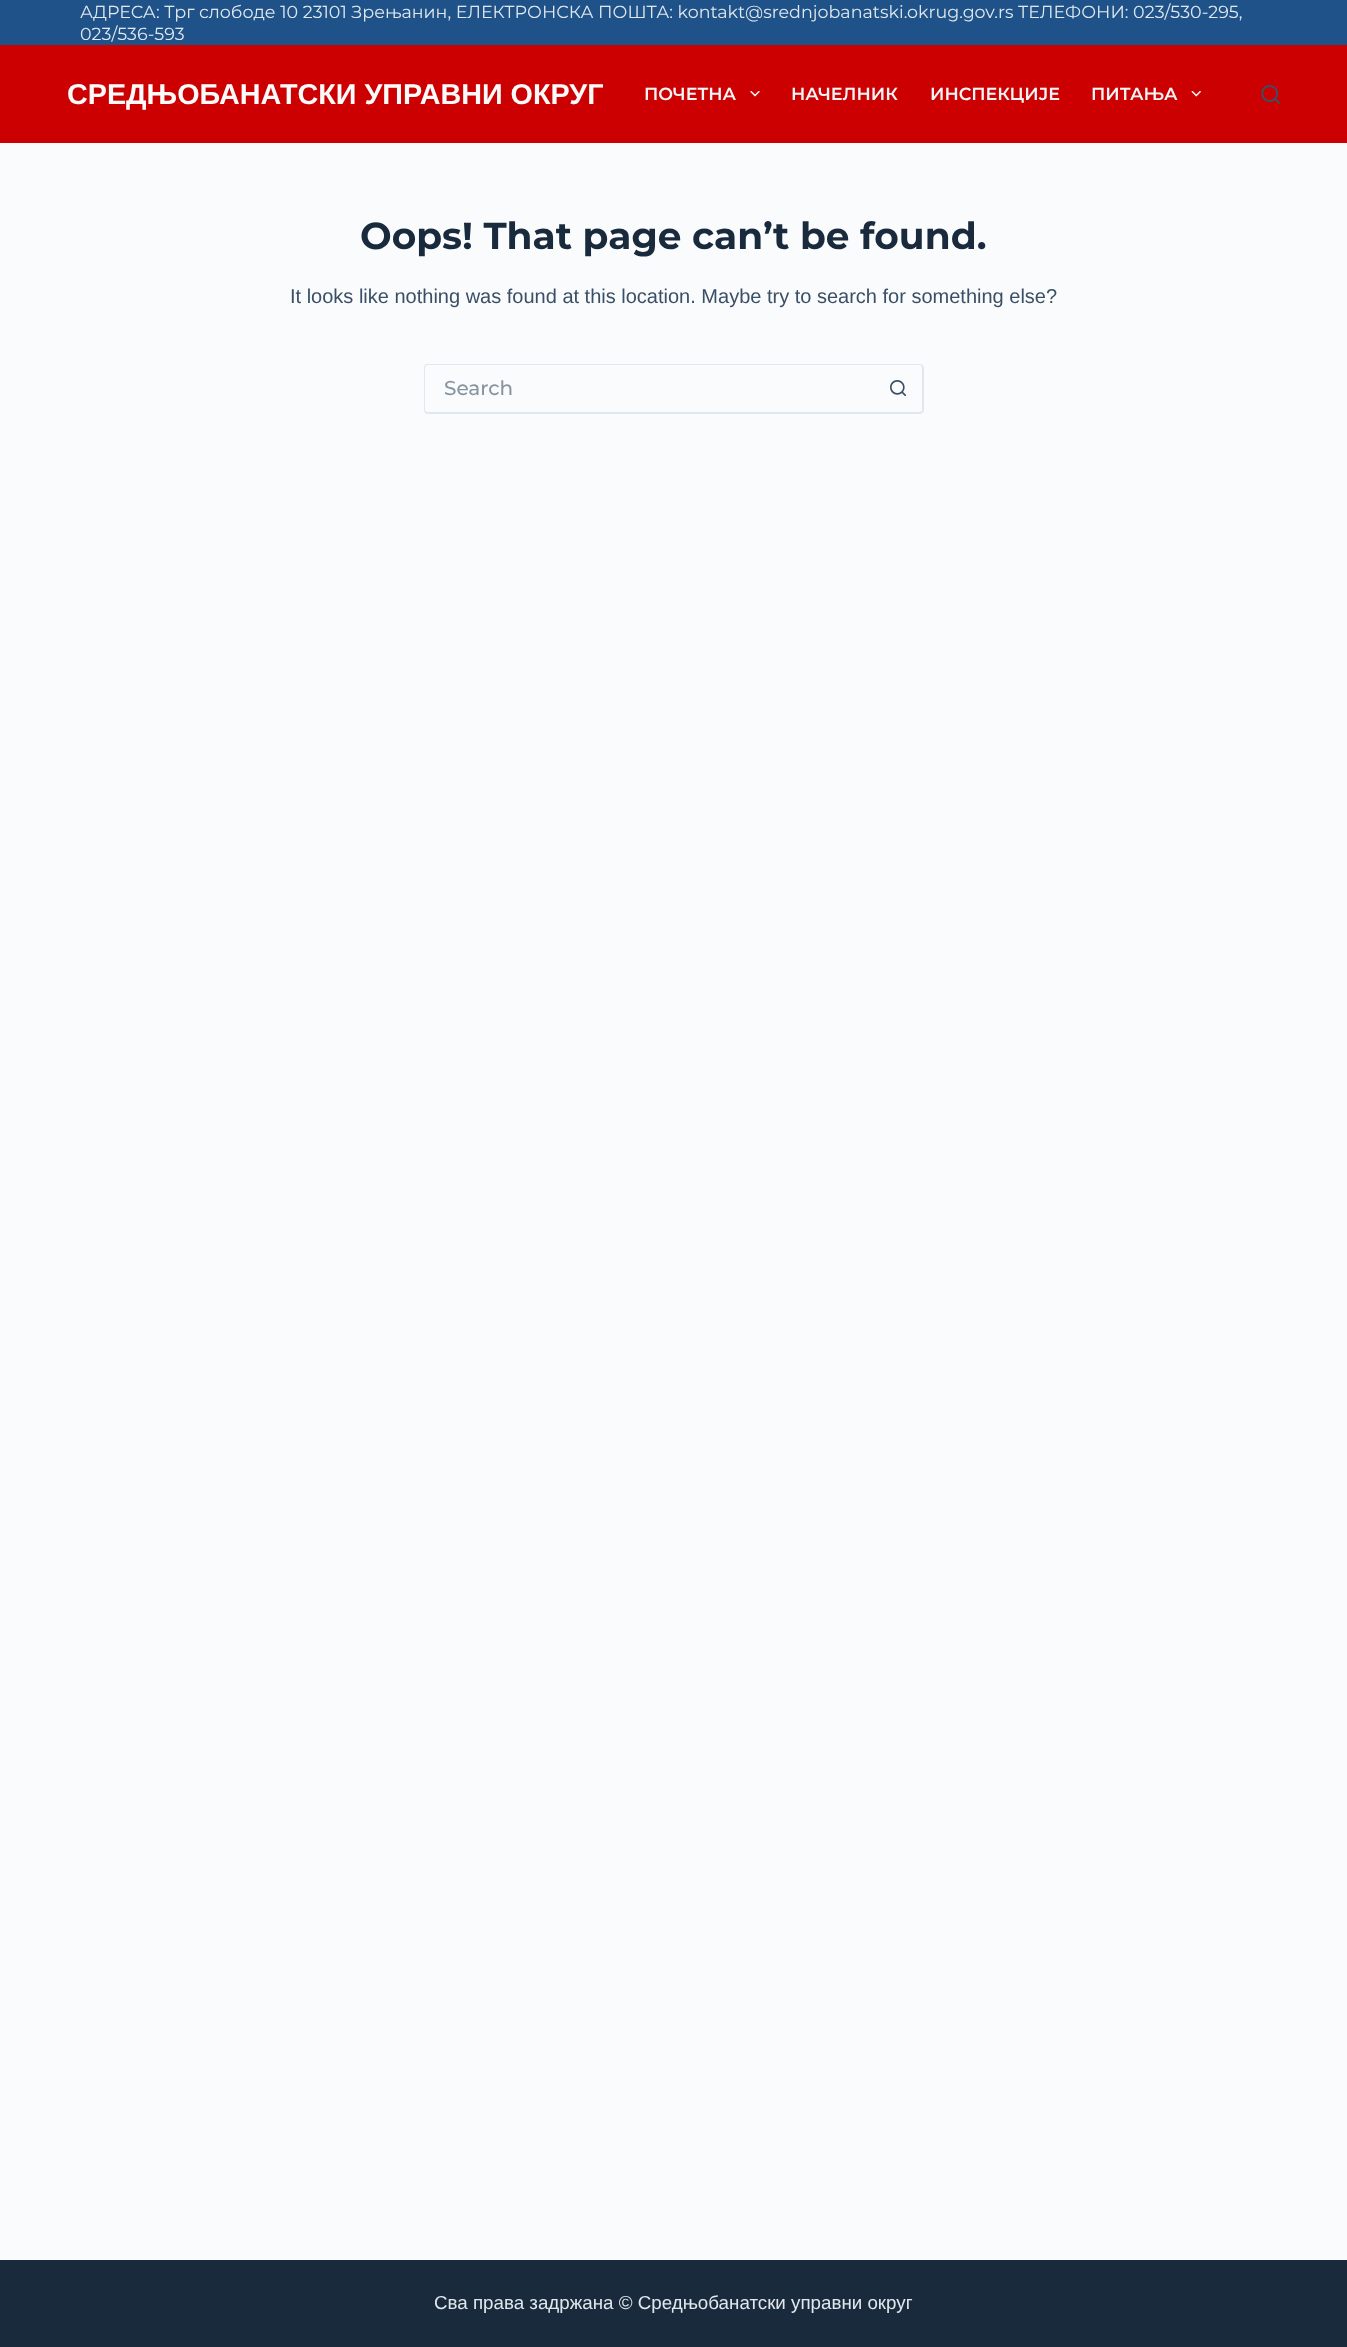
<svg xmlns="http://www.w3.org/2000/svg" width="1347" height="2347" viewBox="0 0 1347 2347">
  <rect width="100%" height="100%" fill="#fafbfc"/>
  <path d="M0 0h1347v45H0z" fill="#1e5289"/>
  <path d="M0 45h1347v98H0z" fill="#c00"/>
  <image x="750" y="91" width="10" height="6" href="img/1.png"/>
  <image x="1191" y="91" width="10" height="6" href="img/2.png"/>
  <image x="1261" y="85" width="19" height="19" href="img/3.png"/>
  <path d="M428 364H874V414H428C425 414 424 412 424 410V368C424 365 425 364 428 364ZM428 365H874V412H428C426 412 425 411 425 410V368C425 366 426 365 428 365Z" fill="#e1e8ed" fill-rule="evenodd"/>
  <path d="M874 364H920C922 364 924 365 924 368V410C924 412 922 414 920 414H874ZM874 365H920C921 365 922 366 922 368V410C922 411 921 412 920 412H874Z" fill="#e1e8ed" fill-rule="evenodd"/>
  <image x="890" y="380" width="16" height="16" href="img/4.png"/>
  <path d="M0 2260h1347v87H0z" fill="#192a3d"/>
  <g font-family="Montserrat" font-size="17.5" fill="#e1e8ed">
    <text x="80" y="18">АДРЕСА: Трг слободе 10 23101 Зрењанин, ЕЛЕКТРОНСКА ПОШТА: kontakt@srednjobanatski.okrug.gov.rs ТЕЛЕФОНИ: 023/530-295,</text>
    <text x="80" y="40">023/536-593</text>
  </g>
  <text x="67" y="104" font-family="Liberation Sans" font-size="28.75" font-weight="bold" fill="#fbfbfb">СРЕДЊОБАНАТСКИ УПРАВНИ ОКРУГ</text>
  <g font-family="Montserrat" font-size="17.5" font-weight="600" fill="#f2f5f7">
    <text x="644" y="100">ПОЧЕТНА</text>
    <text x="791" y="100">НАЧЕЛНИК</text>
    <text x="930" y="100">ИНСПЕКЦИЈЕ</text>
    <text x="1091" y="100">ПИТАЊА</text>
  </g>
  <text x="360" y="249" font-family="Montserrat" font-size="37.5" font-weight="bold" fill="#192a3d">Oops! That page can’t be found.</text>
  <text x="290" y="303" font-family="Liberation Sans" font-size="20" fill="#3a4f66">It looks like nothing was found at this location. Maybe try to search for something else?</text>
  <text x="444" y="395" font-family="Montserrat" font-size="20" font-weight="500" fill="#8794a2">Search</text>
  <text x="434" y="2309" font-family="Liberation Sans" font-size="18.75" fill="#e1e8ed">Сва права задржана © Средњобанатски управни округ</text>
</svg>
